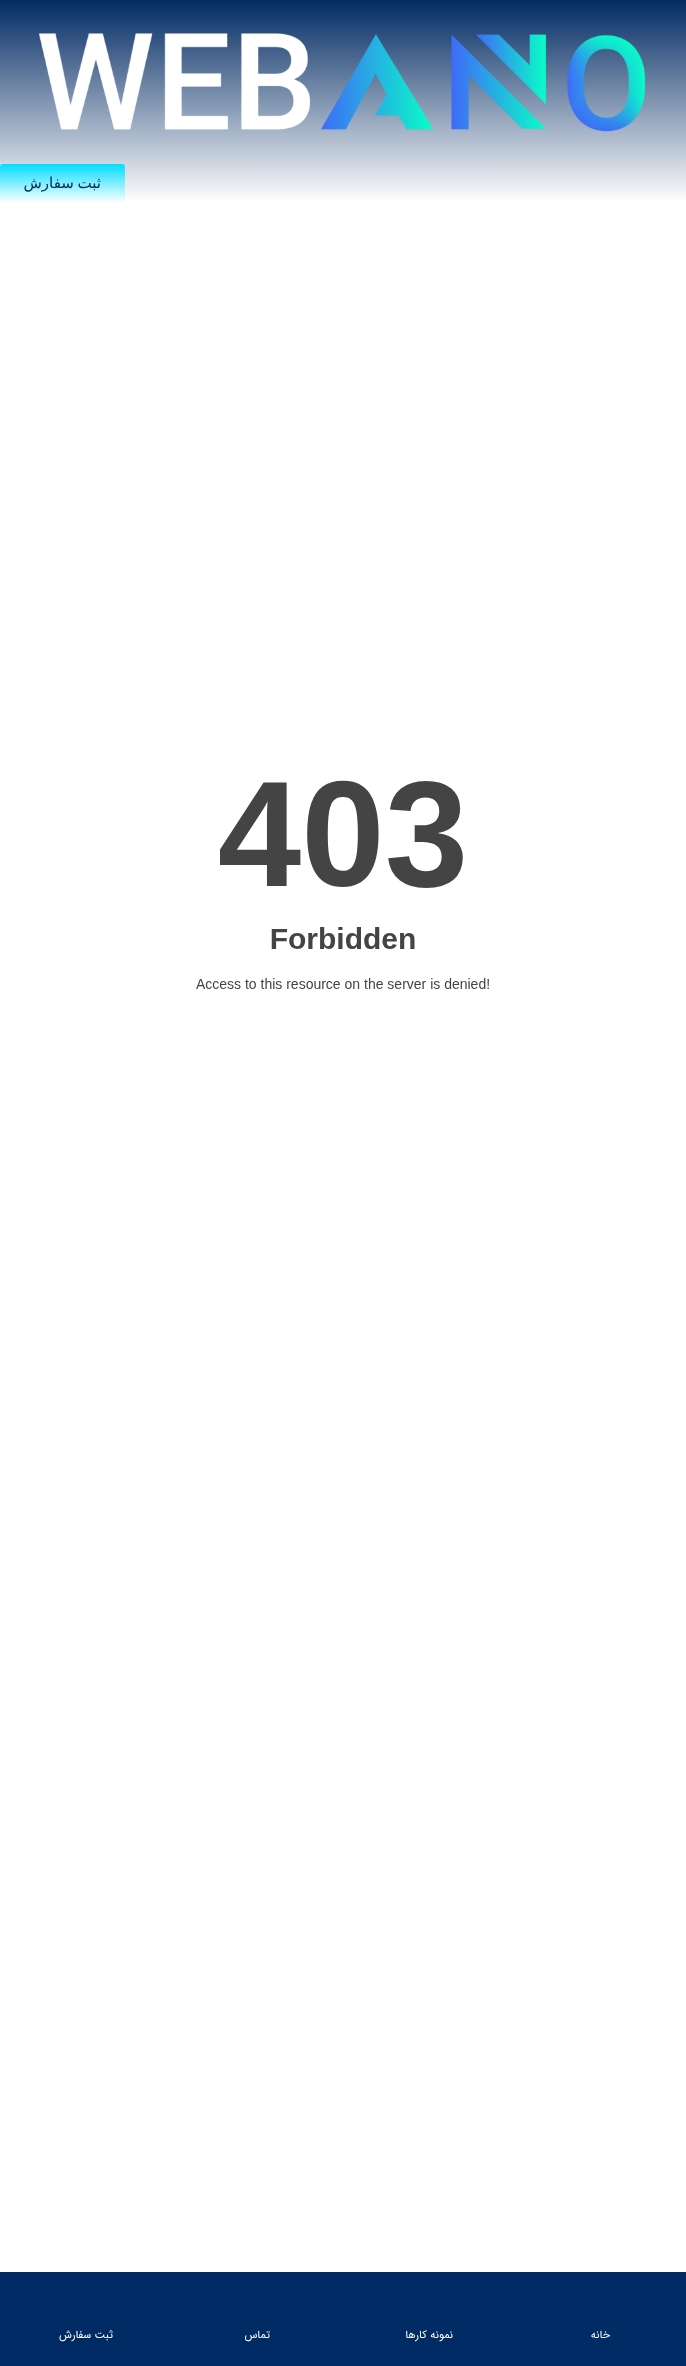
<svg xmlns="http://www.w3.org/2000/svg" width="686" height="2366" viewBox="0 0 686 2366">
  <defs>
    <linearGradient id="g1" gradientUnits="userSpaceOnUse" x1="343" y1="0" x2="343" y2="203"><stop offset="0" stop-color="#022b63"/><stop offset="1" stop-color="#fff"/></linearGradient>
    <linearGradient id="g2" gradientUnits="userSpaceOnUse" x1="63" y1="164" x2="63" y2="203"><stop offset="0" stop-color="#00deff"/><stop offset="1" stop-color="#fff"/></linearGradient>
  </defs>
  <rect width="100%" height="100%" fill="#fff"/>
  <path d="M0 0h686v201H0z" fill="url(#g1)"/>
  <image x="38" y="33" width="608" height="99" href="img/1.png"/>
  <rect y="164" width="125" height="39" rx="3" fill="url(#g2)"/>
  <image x="196" y="780" width="293" height="209" href="img/2.png"/>
  <path d="M0 2272h686v94H0z" fill="#012b64"/>
  <text x="101" y="188" word-spacing="-1" font-family="DejaVu Sans" font-size="15" direction="rtl" fill="#022b63">ثبت سفارش</text>
  <g font-family="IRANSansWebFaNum" font-size="11" direction="rtl" fill="#fff">
    <text x="610" y="2338">خانه</text>
    <text x="453" y="2338">نمونه کارها</text>
    <text x="270" y="2338">تماس</text>
    <text x="113" y="2338">ثبت سفارش</text>
  </g>
</svg>
